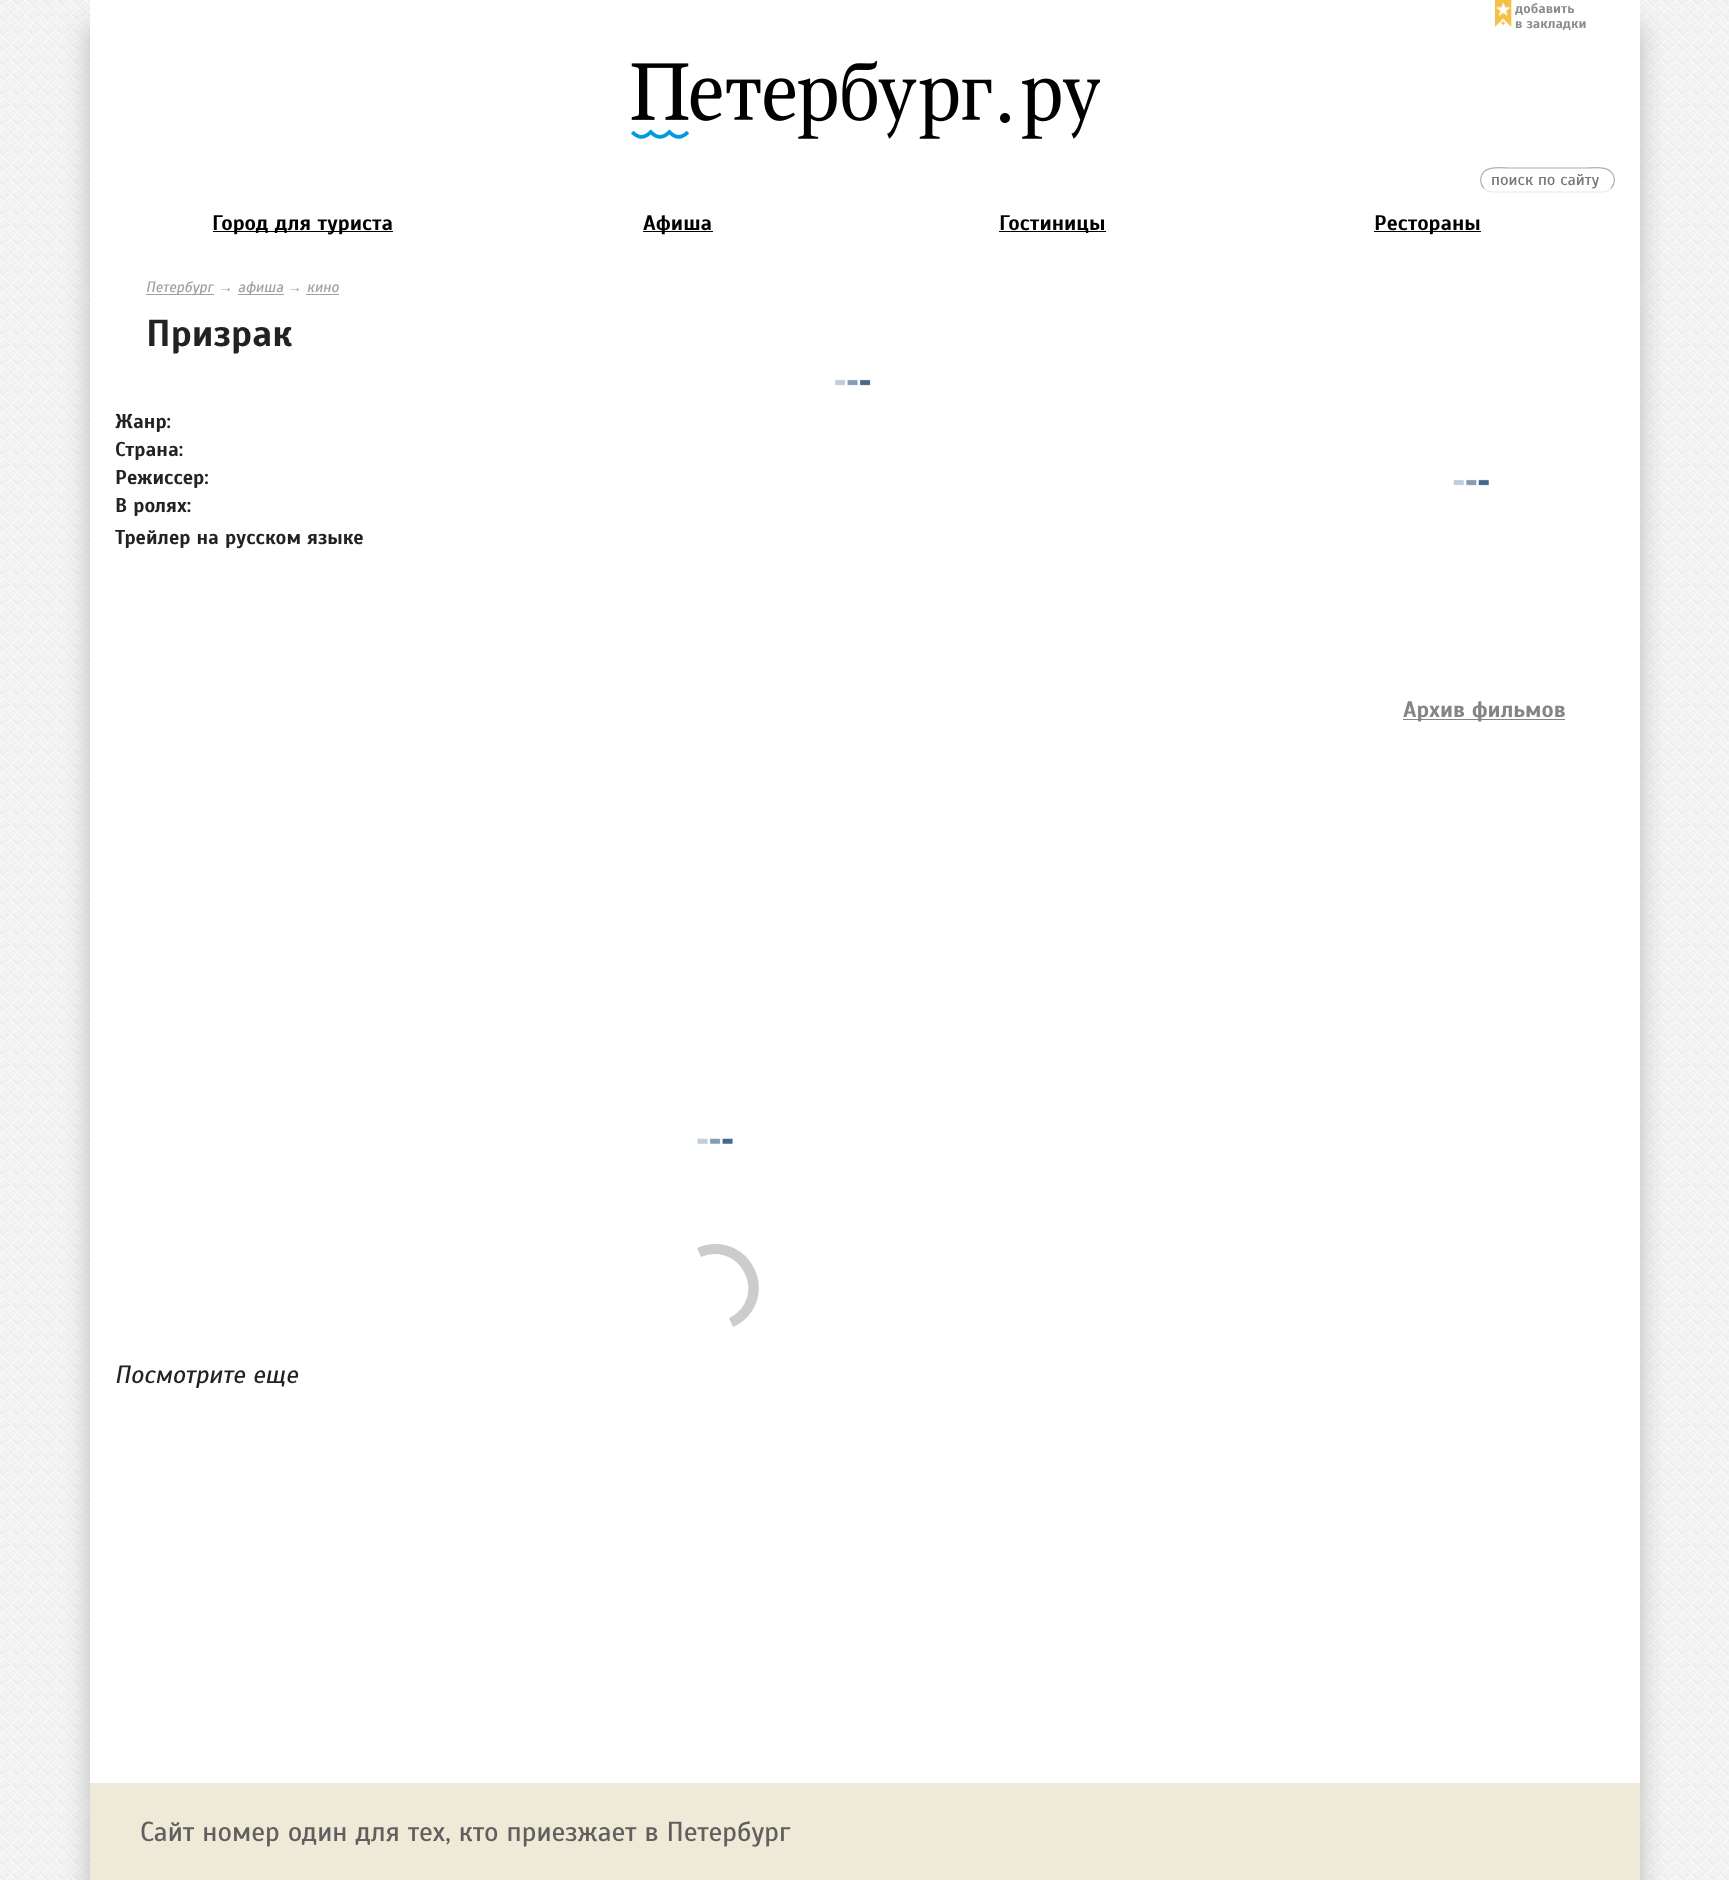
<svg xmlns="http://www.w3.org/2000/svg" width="1729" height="1880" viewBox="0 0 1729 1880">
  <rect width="100%" height="100%" fill="#fff"/>
  <image x="0" y="0" width="1729" height="1880" href="img/1.png"/>
  <path d="M90 25h1550v270H90z" fill="#b9b9b9" filter="blur(13px)"/>
  <path d="M90 0h1550v270H90z" fill="#fff"/>
  <image x="1495" y="0" width="17" height="27" href="img/2.png"/>
  <path d="M213 231h180v1H213z" fill="#000"/>
  <path d="M643 231h70v1H643z" fill="#000"/>
  <path d="M999 231h107v1H999z" fill="#000"/>
  <path d="M1374 231h107v1H1374z" fill="#000"/>
  <image x="631" y="61" width="469" height="78" href="img/3.png"/>
  <path d="M1611 188.5C1608.5 190.5 1605.5 192 1602.5 192H1492.5C1489.5 192 1486.5 190.5 1484 188.5" fill="none" stroke="#eaeaea" stroke-width="1.2"/>
  <path d="M1484 188.5C1481.5 185.5 1480 181.5 1481 177.5C1483.5 164.5 1502 168 1511 168H1584C1593 168 1611.5 164.5 1614 177.5C1615 181.5 1613.5 185.5 1611 188.5" fill="none" stroke="#b0b0b0" stroke-width="1.2"/>
  <path d="M90 295h1550v1513H90z" fill="#b9b9b9" filter="blur(13px)"/>
  <path d="M90 270h1550v1513H90z" fill="#fff"/>
  <path d="M146 294h68v1H146z" fill="#a3a1a1"/>
  <path d="M238 294h46v1H238z" fill="#a3a1a1"/>
  <path d="M306 294h33v1H306z" fill="#a3a1a1"/>
  <image x="835" y="379" width="36" height="7" href="img/4.png"/>
  <image x="697" y="1138" width="36" height="6" href="img/5.png"/>
  <path d="M733 1327C755 1318 765 1292 755 1270C745 1247 719 1238 697 1248L701 1257C718 1249 738 1257 745 1274C753 1291 746 1310 729 1318Z" fill="#ccc"/>
  <image x="1453" y="479" width="36" height="7" href="img/6.png"/>
  <path d="M1403 719h162v1H1403z" fill="#858585"/>
  <path d="M90 1808h1550v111H90z" fill="#b9b9b9" filter="blur(13px)"/>
  <path d="M90 1783h1550v97H90z" fill="#efe9d7"/>
  <g font-family="Scada" font-size="13.75" font-weight="bold" fill="#8c8c8c">
    <text x="1515" y="13">добавить</text>
    <text x="1515" y="28">в закладки</text>
  </g>
  <g font-family="Scada" font-size="21.25" font-weight="bold" fill="#000">
    <text x="212" y="230">Город для туриста</text>
    <text x="643" y="230">Афиша</text>
    <text x="999" y="230">Гостиницы</text>
    <text x="1374" y="230">Рестораны</text>
  </g>
  <text x="1491" y="185" font-family="Scada" font-size="16.25" fill="#757575">поиск по сайту</text>
  <text x="146" y="292" font-family="Scada" font-size="15" font-style="italic" fill="#a3a1a1">Петербург</text>
  <text x="218" y="292" font-family="Liberation Sans" font-size="15" font-style="italic" fill="#a3a1a1">→</text>
  <text x="238" y="292" font-family="Scada" font-size="15" font-style="italic" fill="#a3a1a1">афиша</text>
  <text x="287" y="292" font-family="Liberation Sans" font-size="15" font-style="italic" fill="#a3a1a1">→</text>
  <text x="307" y="292" font-family="Scada" font-size="15" font-style="italic" fill="#a3a1a1">кино</text>
  <text x="146" y="346" font-family="Scada" font-size="37.5" font-weight="bold" fill="#222">Призрак</text>
  <g font-family="Scada" font-size="20" font-weight="bold" fill="#222">
    <text x="115" y="428">Жанр:</text>
    <text x="115" y="456">Страна:</text>
    <text x="115" y="484">Режиссер:</text>
    <text x="115" y="512">В ролях:</text>
    <text x="115" y="544">Трейлер на русском языке</text>
  </g>
  <text x="115" y="1383" font-family="Scada" font-size="25" font-style="italic" fill="#222">Посмотрите еще</text>
  <text x="1403" y="717" font-family="Scada" font-size="22.5" font-weight="bold" fill="#858585">Архив фильмов</text>
  <text x="140" y="1841" font-family="Scada" font-size="27.5" fill="#5f5f5f">Сайт номер один для тех, кто приезжает в Петербург</text>
</svg>
